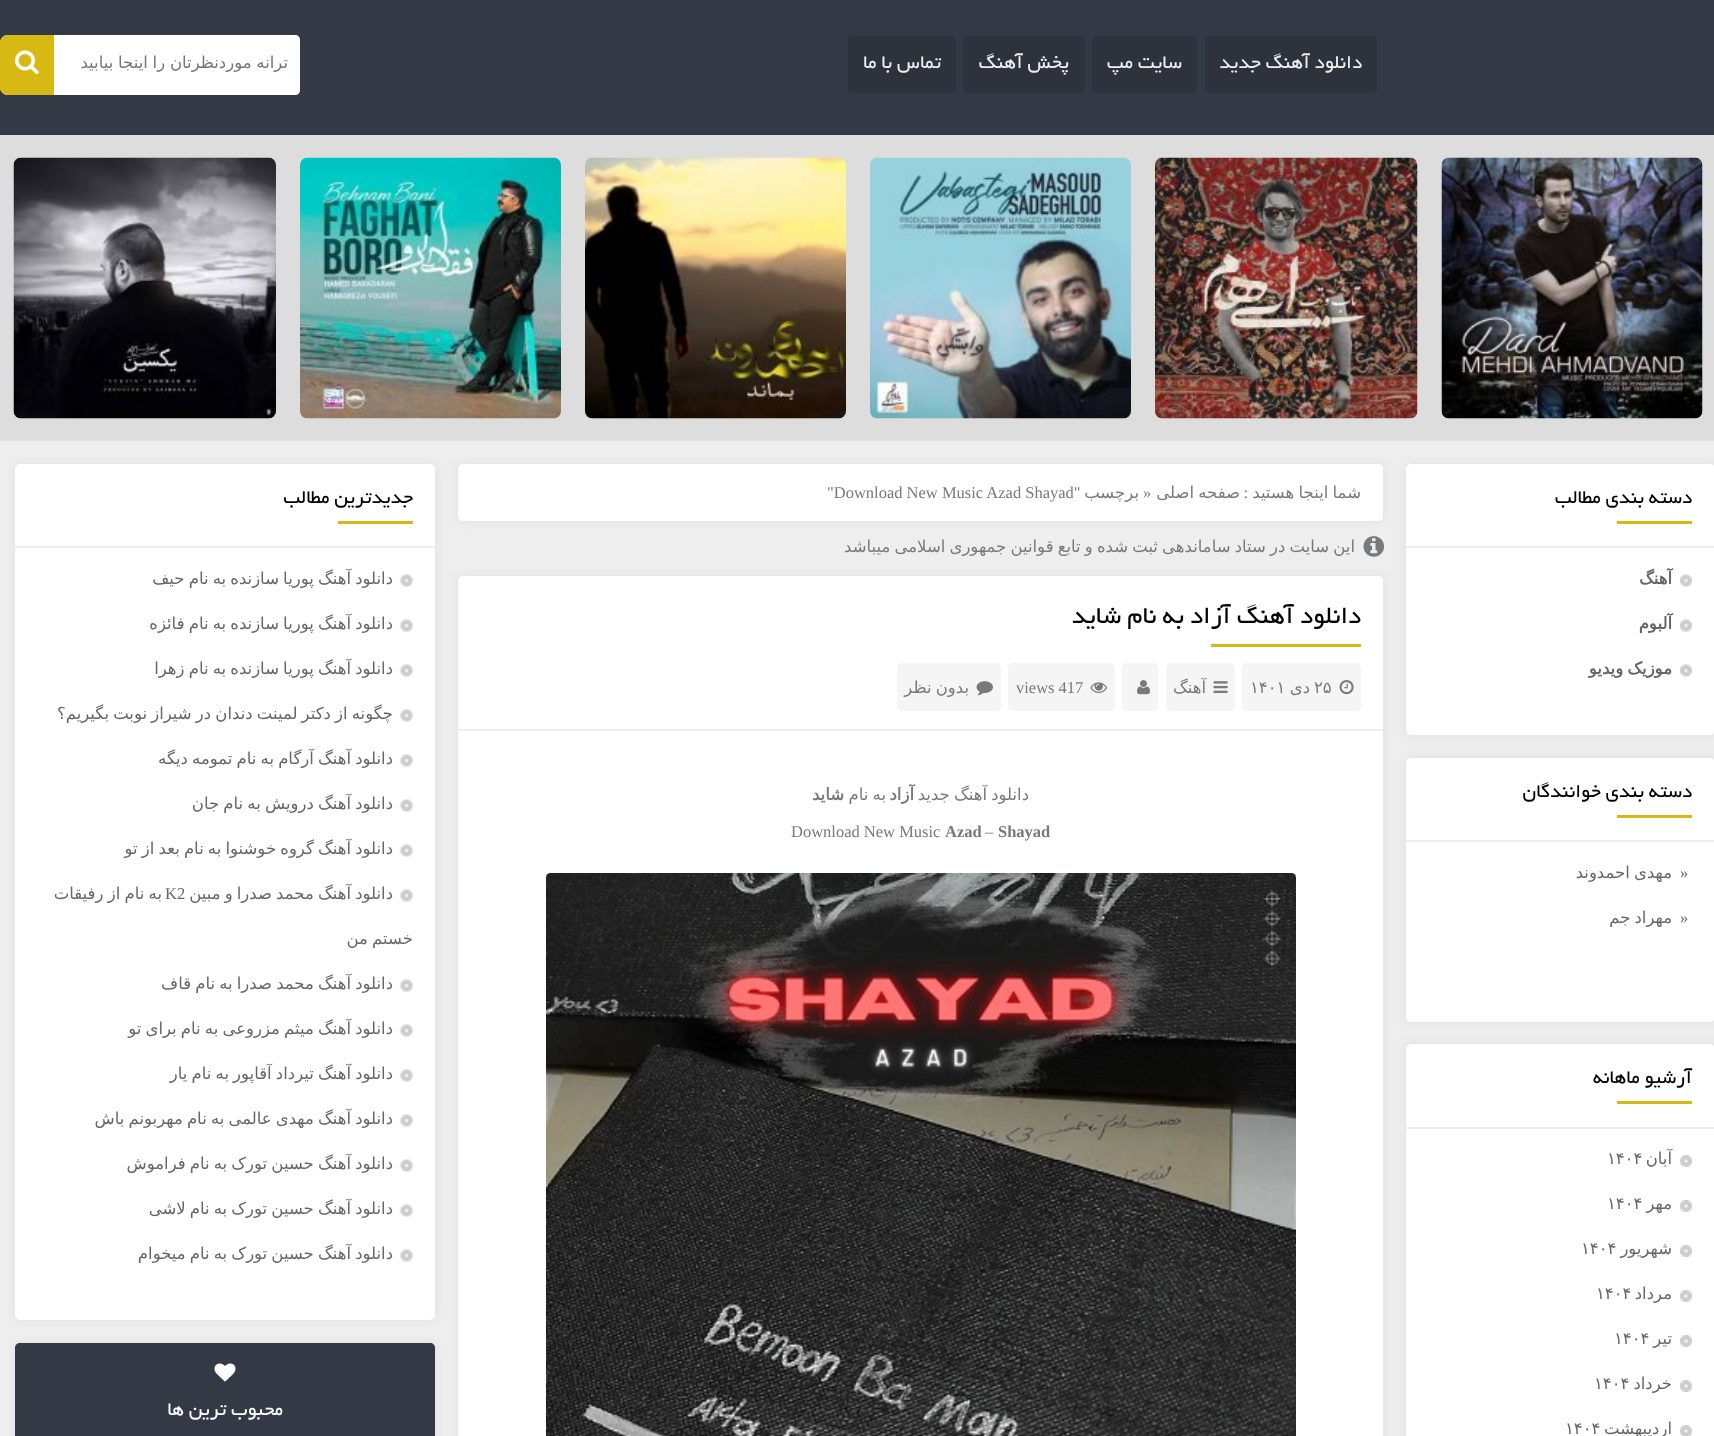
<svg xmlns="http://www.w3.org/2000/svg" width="1714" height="1436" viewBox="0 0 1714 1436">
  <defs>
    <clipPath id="clip1"><path d="M63 53h225v19H63z"/></clipPath>
  </defs>
  <rect width="100%" height="100%" fill="#eee"/>
  <path d="M0 0h1714v135H0z" fill="#333945"/>
  <rect x="1205" y="36" width="172" height="57" rx="5" fill="#2d323c"/>
  <rect x="1092" y="36" width="105" height="57" rx="5" fill="#2d323c"/>
  <rect x="963" y="36" width="122" height="57" rx="5" fill="#2d323c"/>
  <rect x="848" y="36" width="108" height="57" rx="5" fill="#2d323c"/>
  <path d="M8 35H295C298 35 300 37 300 40V90C300 93 298 95 295 95H8C3.5 95 0 91.5 0 87V43C0 38.5 3.5 35 8 35Z" fill="#fff"/>
  <path d="M8 35H54V95H8C3.5 95 0 91.5 0 87V43C0 38.5 3.5 35 8 35Z" fill="#d8b813"/>
  <image x="15" y="50" width="24" height="25" href="img/1.png"/>
  <path d="M0 135h1714v306H0z" fill="#ddd"/>
  <image x="1441" y="157" width="262" height="262" href="img/2.png"/>
  <image x="1155" y="157" width="263" height="262" href="img/3.png"/>
  <image x="870" y="157" width="261" height="262" href="img/4.png"/>
  <image x="585" y="157" width="261" height="262" href="img/5.png"/>
  <image x="300" y="157" width="261" height="262" href="img/6.png"/>
  <image x="13" y="157" width="263" height="262" href="img/7.png"/>
  <rect x="1406" y="464" width="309" height="271" rx="5" fill="#ddd" filter="blur(4px)"/>
  <rect x="1406" y="464" width="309" height="271" rx="5" fill="#fff"/>
  <path d="M1406 546h308v2H1406z" fill="#eee"/>
  <path d="M1617 521h75v3H1617z" fill="#d8b813"/>
  <image x="1680" y="574" width="12" height="13" href="img/8.png"/>
  <image x="1680" y="619" width="12" height="13" href="img/8.png"/>
  <image x="1680" y="664" width="12" height="13" href="img/8.png"/>
  <rect x="1406" y="758" width="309" height="264" rx="5" fill="#ddd" filter="blur(4px)"/>
  <rect x="1406" y="758" width="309" height="264" rx="5" fill="#fff"/>
  <path d="M1406 840h308v2H1406z" fill="#eee"/>
  <path d="M1617 815h75v3H1617z" fill="#d8b813"/>
  <rect x="1406" y="1044" width="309" height="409" rx="5" fill="#ddd" filter="blur(4px)"/>
  <rect x="1406" y="1044" width="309" height="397" rx="5" fill="#fff"/>
  <path d="M1406 1127h308v2H1406z" fill="#eee"/>
  <path d="M1617 1101h75v3H1617z" fill="#d8b813"/>
  <image x="1680" y="1155" width="12" height="12" href="img/9.png"/>
  <image x="1680" y="1200" width="12" height="12" href="img/9.png"/>
  <image x="1680" y="1245" width="12" height="12" href="img/9.png"/>
  <image x="1680" y="1290" width="12" height="12" href="img/9.png"/>
  <image x="1680" y="1335" width="12" height="12" href="img/9.png"/>
  <image x="1680" y="1380" width="12" height="12" href="img/9.png"/>
  <image x="1680" y="1425" width="12" height="11" href="img/10.png"/>
  <rect x="458" y="464" width="925" height="57" rx="5" fill="#ddd" filter="blur(4px)"/>
  <rect x="458" y="464" width="925" height="57" rx="5" fill="#fff"/>
  <image x="1363" y="536" width="22" height="21" href="img/11.png"/>
  <rect x="458" y="576" width="925" height="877" rx="5" fill="#ddd" filter="blur(4px)"/>
  <rect x="458" y="576" width="925" height="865" rx="5" fill="#fff"/>
  <path d="M1211 644h150v3H1211z" fill="#d8b813"/>
  <path d="M458 729h925v2H458z" fill="#eee"/>
  <rect x="1242" y="663" width="119" height="48" rx="5" fill="#f5f5f5"/>
  <image x="1339" y="680" width="15" height="15" href="img/12.png"/>
  <rect x="1166" y="663" width="69" height="48" rx="5" fill="#f5f5f5"/>
  <image x="1213" y="681" width="15" height="12" href="img/13.png"/>
  <rect x="1122" y="663" width="36" height="48" rx="5" fill="#f5f5f5"/>
  <image x="1137" y="680" width="13" height="15" href="img/14.png"/>
  <rect x="1008" y="663" width="107" height="48" rx="5" fill="#f5f5f5"/>
  <image x="1090" y="682" width="17" height="11" href="img/15.png"/>
  <rect x="897" y="663" width="104" height="48" rx="5" fill="#f5f5f5"/>
  <image x="976" y="681" width="17" height="15" href="img/16.png"/>
  <image x="546" y="873" width="750" height="563" href="img/17.png"/>
  <rect x="15" y="464" width="420" height="856" rx="5" fill="#ddd" filter="blur(4px)"/>
  <rect x="15" y="464" width="420" height="856" rx="5" fill="#fff"/>
  <path d="M15 546h420v2H15z" fill="#eee"/>
  <path d="M338 521h75v3H338z" fill="#d8b813"/>
  <image x="400" y="574" width="13" height="13" href="img/18.png"/>
  <image x="400" y="619" width="13" height="13" href="img/18.png"/>
  <image x="400" y="664" width="13" height="13" href="img/18.png"/>
  <image x="400" y="754" width="13" height="13" href="img/18.png"/>
  <image x="400" y="799" width="13" height="13" href="img/18.png"/>
  <image x="400" y="889" width="13" height="13" href="img/18.png"/>
  <image x="400" y="979" width="13" height="13" href="img/18.png"/>
  <image x="400" y="1024" width="13" height="13" href="img/18.png"/>
  <image x="400" y="1069" width="13" height="13" href="img/18.png"/>
  <image x="400" y="1114" width="13" height="13" href="img/18.png"/>
  <image x="400" y="1159" width="13" height="13" href="img/18.png"/>
  <image x="400" y="1204" width="13" height="13" href="img/18.png"/>
  <image x="400" y="1249" width="13" height="13" href="img/18.png"/>
  <rect x="15" y="1343" width="420" height="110" rx="5" fill="#ddd" filter="blur(4px)"/>
  <path d="M20 1343H430C433 1343 435 1345 435 1348V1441H15V1348C15 1345 17 1343 20 1343Z" fill="#333945"/>
  <image x="214" y="1363" width="22" height="19" href="img/21.png"/>
  <g font-family="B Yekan" font-size="21" direction="rtl" fill="#eee">
    <text x="1362" y="68">دانلود آهنگ جدید</text>
    <text x="1182" y="68">سایت مپ</text>
    <text x="1069" y="68">پخش آهنگ</text>
    <text x="941" y="68">تماس با ما</text>
  </g>
  <g clip-path="url(#clip1)">
    <text x="288" y="68" word-spacing="-0.5" font-family="DejaVu Sans" font-size="16.5" direction="rtl" fill="#757575">ترانه موردنظرتان را اینجا بیابید</text>
  </g>
  <text x="1692" y="503" font-family="B Yekan" font-size="21" direction="rtl" fill="#000">دسته بندی مطالب</text>
  <g font-family="DejaVu Sans" font-size="16.5" font-weight="bold" direction="rtl" fill="#666">
    <text x="1672" y="584">آهنگ</text>
    <text x="1672" y="629">آلبوم</text>
    <text x="1672" y="674" word-spacing="-1.1">موزیک ویدیو</text>
  </g>
  <text x="1692" y="797" font-family="B Yekan" font-size="21" direction="rtl" fill="#000">دسته بندی خوانندگان</text>
  <text x="1680" y="878" font-family="Liberation Serif" font-size="16.5" fill="#666">»</text>
  <text x="1672" y="878" word-spacing="-1.1" font-family="DejaVu Sans" font-size="16.5" direction="rtl" fill="#666">مهدی احمدوند</text>
  <text x="1680" y="923" font-family="Liberation Serif" font-size="16.5" fill="#666">»</text>
  <text x="1672" y="923" word-spacing="-1.1" font-family="DejaVu Sans" font-size="16.5" direction="rtl" fill="#666">مهراد جم</text>
  <text x="1692" y="1083" font-family="B Yekan" font-size="21" direction="rtl" fill="#000">آرشیو ماهانه</text>
  <text x="1672" y="1164" font-family="DejaVu Sans" font-size="16.5" direction="rtl" fill="#666">آبان</text>
  <text x="1607" y="1164" font-family="DejaVu Sans" font-size="16.5" fill="#666">۱۴۰۴</text>
  <text x="1672" y="1209" font-family="DejaVu Sans" font-size="16.5" direction="rtl" fill="#666">مهر</text>
  <text x="1607" y="1209" font-family="DejaVu Sans" font-size="16.5" fill="#666">۱۴۰۴</text>
  <text x="1672" y="1254" font-family="DejaVu Sans" font-size="16.5" direction="rtl" fill="#666">شهریور</text>
  <text x="1581" y="1254" font-family="DejaVu Sans" font-size="16.5" fill="#666">۱۴۰۴</text>
  <text x="1672" y="1299" font-family="DejaVu Sans" font-size="16.5" direction="rtl" fill="#666">مرداد</text>
  <text x="1596" y="1299" font-family="DejaVu Sans" font-size="16.5" fill="#666">۱۴۰۴</text>
  <text x="1672" y="1344" font-family="DejaVu Sans" font-size="16.5" direction="rtl" fill="#666">تیر</text>
  <text x="1614" y="1344" font-family="DejaVu Sans" font-size="16.5" fill="#666">۱۴۰۴</text>
  <text x="1672" y="1389" font-family="DejaVu Sans" font-size="16.5" direction="rtl" fill="#666">خرداد</text>
  <text x="1594" y="1389" font-family="DejaVu Sans" font-size="16.5" fill="#666">۱۴۰۴</text>
  <text x="1672" y="1434" font-family="DejaVu Sans" font-size="16.5" direction="rtl" fill="#666">اردیبهشت</text>
  <text x="1565" y="1434" font-family="DejaVu Sans" font-size="16.5" fill="#666">۱۴۰۴</text>
  <text x="1361" y="498" word-spacing="-1" font-family="DejaVu Sans" font-size="16.5" direction="rtl" fill="#78797b">شما اینجا هستید</text>
  <text x="1248" y="498" font-family="Liberation Serif" font-size="16.5" direction="rtl" fill="#78797b">:</text>
  <text x="1240" y="498" word-spacing="-1.1" font-family="DejaVu Sans" font-size="16.5" direction="rtl" fill="#78797b">صفحه اصلی</text>
  <text x="1143" y="498" font-family="Liberation Serif" font-size="16.5" fill="#78797b">»</text>
  <text x="1139" y="498" font-family="DejaVu Sans" font-size="16.5" direction="rtl" fill="#78797b">برچسب</text>
  <text x="827" y="498" font-family="Liberation Serif" font-size="16.5" fill="#78797b">"Download New Music Azad Shayad"</text>
  <text x="1355" y="552" word-spacing="-1.1" font-family="DejaVu Sans" font-size="16.5" direction="rtl" fill="#78797b">این سایت در ستاد ساماندهی ثبت شده و تابع قوانین جمهوری اسلامی میباشد</text>
  <text x="1361" y="623" font-family="B Yekan" font-size="27" direction="rtl" fill="#000">دانلود آهنگ آزاد به نام شاید</text>
  <text x="1314" y="693" font-family="DejaVu Sans" font-size="16.5" fill="#78797b">۲۵</text>
  <text x="1310" y="693" font-family="DejaVu Sans" font-size="16.5" direction="rtl" fill="#78797b">دی</text>
  <text x="1250" y="693" font-family="DejaVu Sans" font-size="16.5" fill="#78797b">۱۴۰۱</text>
  <text x="1206" y="693" font-family="DejaVu Sans" font-size="16.5" direction="rtl" fill="#78797b">آهنگ</text>
  <text x="1016" y="693" font-family="Liberation Serif" font-size="16.5" fill="#78797b">views 417</text>
  <g font-family="DejaVu Sans" font-size="16.5" direction="rtl" fill="#78797b">
    <text x="969" y="693" word-spacing="-1.1">بدون نظر</text>
    <text x="1029" y="800" word-spacing="-1.1">دانلود آهنگ جدید</text>
  </g>
  <text x="914" y="800" font-family="DejaVu Sans" font-size="16.5" font-weight="bold" direction="rtl" fill="#78797b">آزاد</text>
  <text x="886" y="800" word-spacing="-1" font-family="DejaVu Sans" font-size="16.5" direction="rtl" fill="#78797b">به نام</text>
  <text x="844" y="800" font-family="DejaVu Sans" font-size="16.5" font-weight="bold" direction="rtl" fill="#78797b">شاید</text>
  <text x="998" y="837" font-family="Liberation Serif" font-size="16.5" font-weight="bold" fill="#78797b">Shayad</text>
  <text x="985" y="837" font-family="Liberation Serif" font-size="16.5" fill="#78797b">–</text>
  <text x="945" y="837" font-family="Liberation Serif" font-size="16.5" font-weight="bold" fill="#78797b">Azad</text>
  <text x="791" y="837" font-family="Liberation Serif" font-size="16.5" fill="#78797b">Download New Music</text>
  <text x="413" y="503" font-family="B Yekan" font-size="21" direction="rtl" fill="#000">جدیدترین مطالب</text>
  <g font-family="DejaVu Sans" font-size="16.5" direction="rtl" fill="#666">
    <text x="393" y="584" word-spacing="-1.1">دانلود آهنگ پوریا سازنده به نام حیف</text>
    <text x="393" y="629" word-spacing="-1.1">دانلود آهنگ پوریا سازنده به نام فائزه</text>
    <text x="393" y="674" word-spacing="-1.1">دانلود آهنگ پوریا سازنده به نام زهرا</text>
    <text x="393" y="719" word-spacing="-1.1">چگونه از دکتر لمینت دندان در شیراز نوبت بگیریم؟</text>
  </g>
  <image x="400" y="709" width="13" height="13" href="img/19.png"/>
  <g font-family="DejaVu Sans" font-size="16.5" direction="rtl" fill="#666">
    <text x="393" y="764" word-spacing="-1.1">دانلود آهنگ آرگام به نام تمومه دیگه</text>
    <text x="393" y="809" word-spacing="-1.1">دانلود آهنگ درویش به نام جان</text>
    <text x="393" y="854" word-spacing="-1.1">دانلود آهنگ گروه خوشنوا به نام بعد از تو</text>
  </g>
  <image x="400" y="844" width="13" height="13" href="img/20.png"/>
  <text x="393" y="899" word-spacing="-1.1" font-family="DejaVu Sans" font-size="16.5" direction="rtl" fill="#666">دانلود آهنگ محمد صدرا و مبین</text>
  <text x="165" y="899" font-family="Liberation Serif" font-size="16.5" fill="#666">K2</text>
  <g font-family="DejaVu Sans" font-size="16.5" direction="rtl" fill="#666">
    <text x="162" y="899" word-spacing="-1">به نام از رفیقات</text>
    <text x="413" y="944" word-spacing="-1.1">خستم من</text>
    <text x="393" y="989" word-spacing="-1.1">دانلود آهنگ محمد صدرا به نام قاف</text>
    <text x="393" y="1034" word-spacing="-1.1">دانلود آهنگ میثم مزروعی به نام برای تو</text>
    <text x="393" y="1079" word-spacing="-1.1">دانلود آهنگ تیرداد آقاپور به نام یار</text>
    <text x="393" y="1124" word-spacing="-1.1">دانلود آهنگ مهدی عالمی به نام مهربونم باش</text>
    <text x="393" y="1169" word-spacing="-1.1">دانلود آهنگ حسین تورک به نام فراموش</text>
    <text x="393" y="1214" word-spacing="-1.1">دانلود آهنگ حسین تورک به نام لاشی</text>
    <text x="393" y="1259" word-spacing="-1.1">دانلود آهنگ حسین تورک به نام میخوام</text>
  </g>
  <text x="283" y="1415" font-family="B Yekan" font-size="21" direction="rtl" fill="#fff">محبوب ترین ها</text>
</svg>
